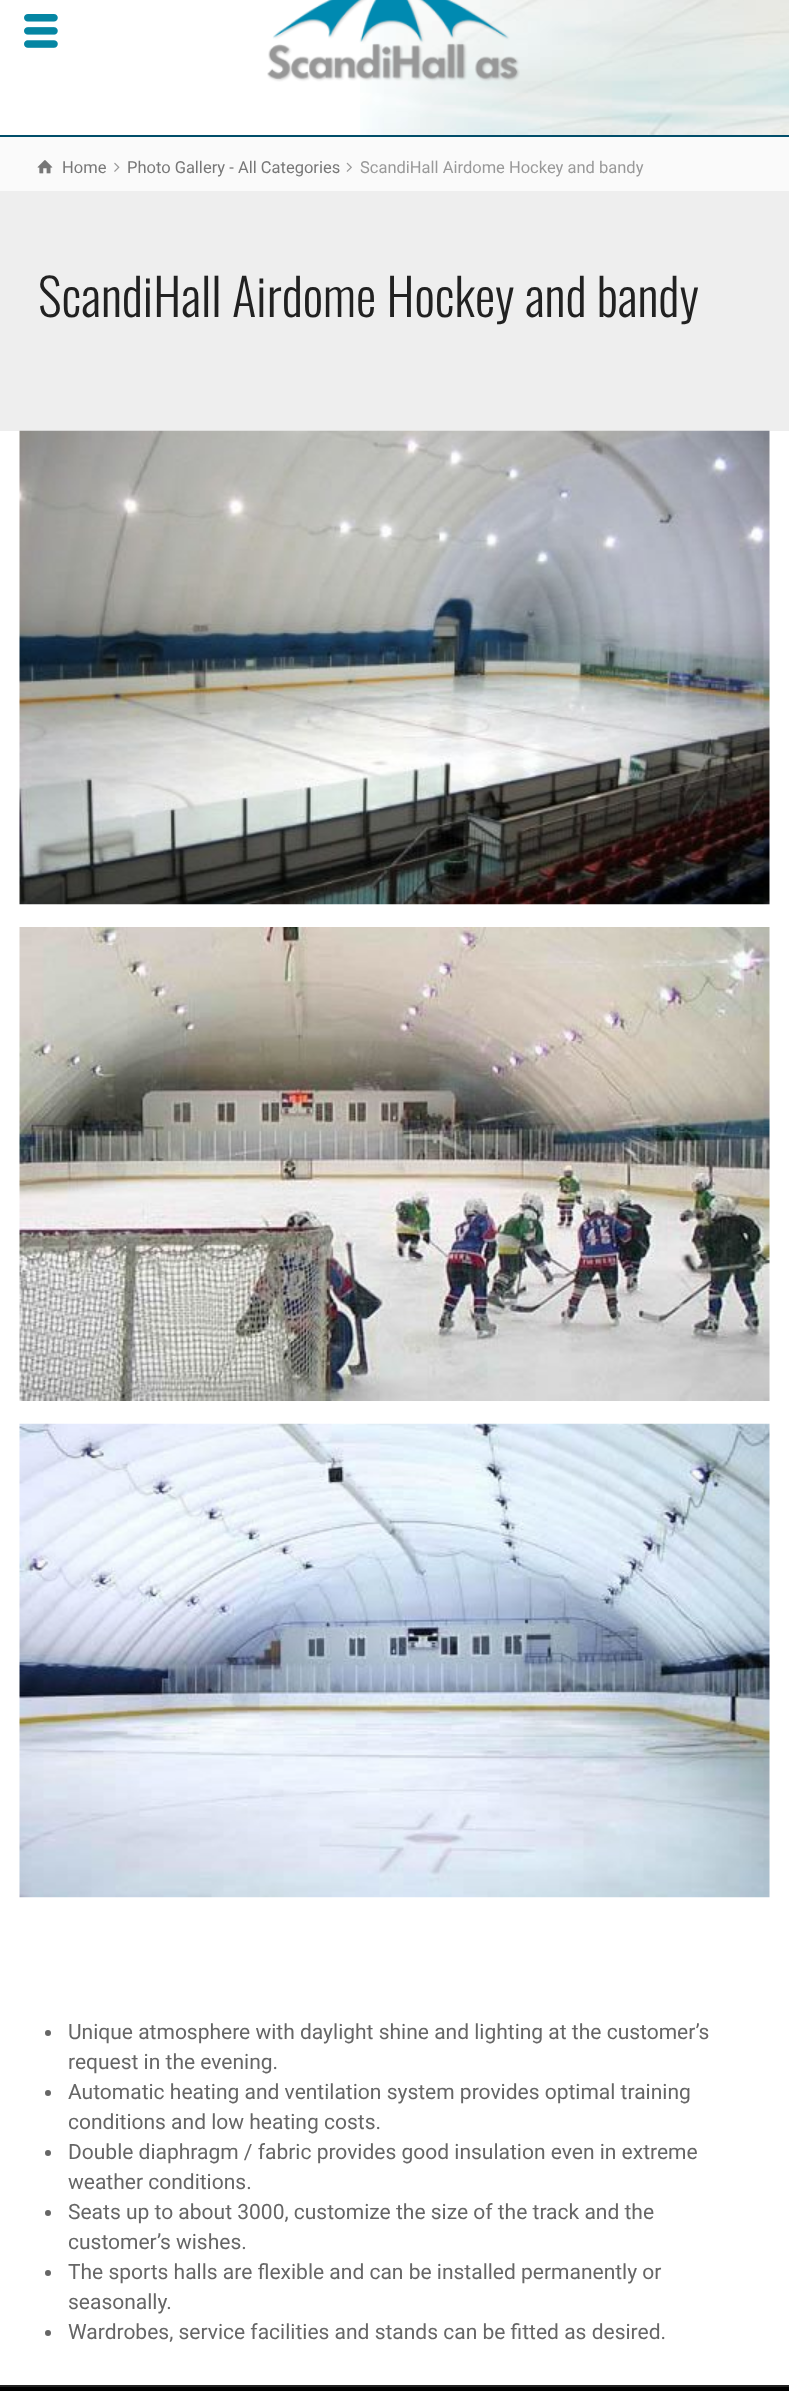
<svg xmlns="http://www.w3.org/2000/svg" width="789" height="2391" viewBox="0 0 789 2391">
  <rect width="100%" height="100%" fill="#fff"/>
  <image x="360" y="0" width="429" height="135" href="img/1.png"/>
  <path d="M0 135h789v2H0z" fill="#014e6a"/>
  <image x="24" y="14" width="34" height="34" href="img/2.png"/>
  <image x="267" y="0" width="253" height="82" href="img/3.png"/>
  <path d="M0 191h789v240H0z" fill="#eee"/>
  <path d="M0 137h789v54H0z" fill="#fafafa"/>
  <image x="37" y="160" width="16" height="14" href="img/4.png"/>
  <image x="114" y="162" width="6" height="10" href="img/5.png"/>
  <image x="346" y="162" width="6" height="10" href="img/6.png"/>
  <image x="19" y="430" width="751" height="475" href="img/7.png"/>
  <image x="19" y="927" width="751" height="474" href="img/8.png"/>
  <image x="19" y="1423" width="751" height="475" href="img/9.png"/>
  <circle cx="48" cy="2033" r="3" fill="#666"/>
  <circle cx="48" cy="2093" r="3" fill="#666"/>
  <circle cx="48" cy="2153" r="3" fill="#666"/>
  <circle cx="48" cy="2213" r="3" fill="#666"/>
  <circle cx="48" cy="2273" r="3" fill="#666"/>
  <circle cx="48" cy="2333" r="3" fill="#666"/>
  <path d="M0 2387h789v4H0z" fill="#000"/>
  <path d="M0 2385h789v2H0z" fill="#222"/>
  <g font-family="Roboto" font-size="16.5" fill="#777">
    <text x="62" y="173">Home</text>
    <text x="127" y="173">Photo Gallery - All Categories</text>
  </g>
  <text x="360" y="173" font-family="Roboto" font-size="16.5" fill="#999">ScandiHall Airdome Hockey and bandy</text>
  <text x="38" y="317" font-family="Oswald" font-size="51" font-weight="300" fill="#212121">ScandiHall Airdome Hockey and bandy</text>
  <g font-family="Roboto" font-size="21" fill="#666">
    <text x="68" y="2039">Unique atmosphere with daylight shine and lighting at the customer’s</text>
    <text x="68" y="2069">request in the evening.</text>
    <text x="68" y="2099">Automatic heating and ventilation system provides optimal training</text>
    <text x="68" y="2129">conditions and low heating costs.</text>
    <text x="68" y="2159">Double diaphragm / fabric provides good insulation even in extreme</text>
    <text x="68" y="2189">weather conditions.</text>
    <text x="68" y="2219">Seats up to about 3000, customize the size of the track and the</text>
    <text x="68" y="2249">customer’s wishes.</text>
    <text x="68" y="2279">The sports halls are flexible and can be installed permanently or</text>
    <text x="68" y="2309">seasonally.</text>
    <text x="68" y="2339">Wardrobes, service facilities and stands can be fitted as desired.</text>
  </g>
</svg>
